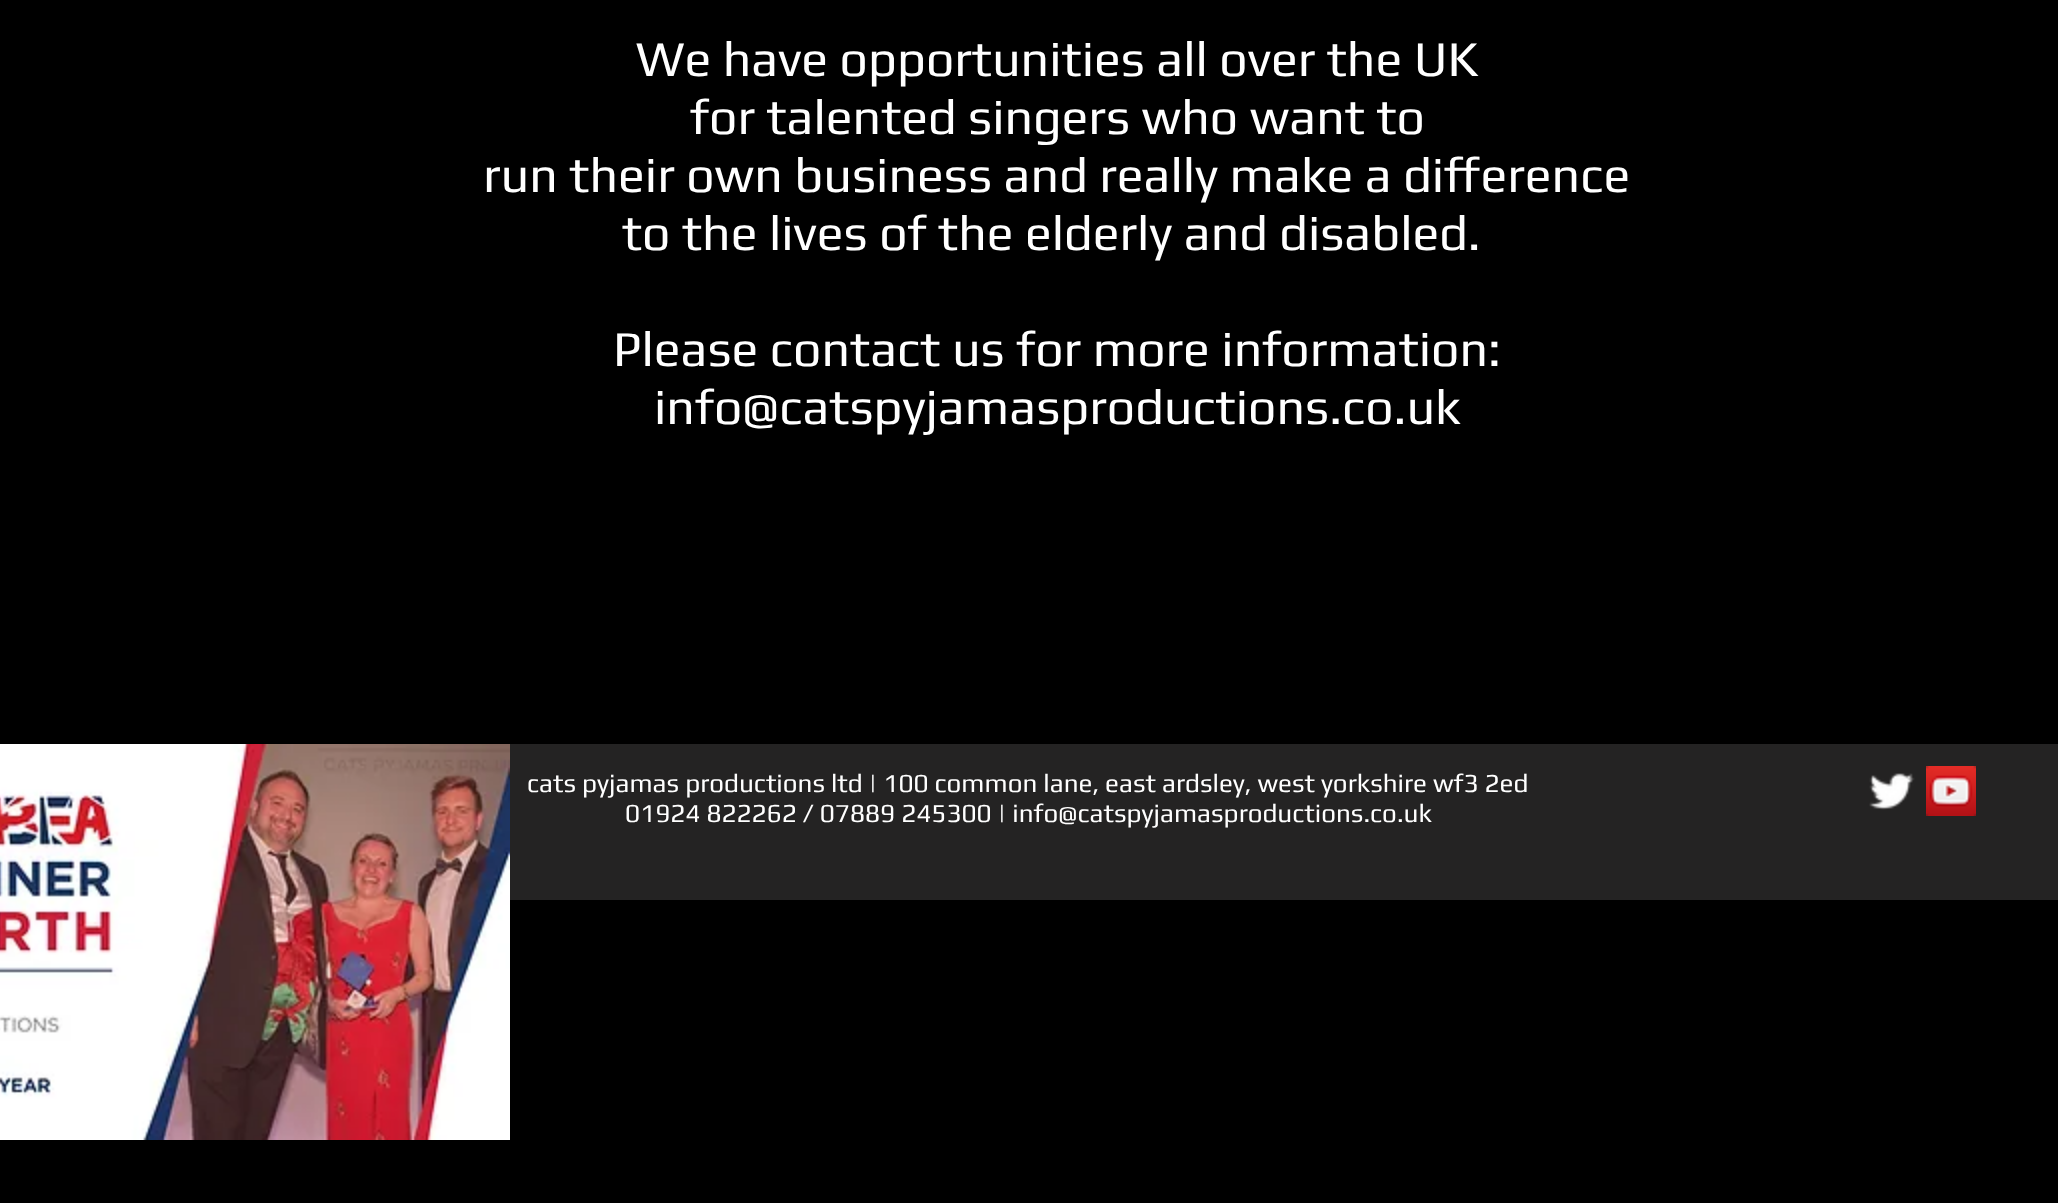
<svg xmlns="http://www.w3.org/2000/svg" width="2058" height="1203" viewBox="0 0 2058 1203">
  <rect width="100%" height="100%" fill="#000"/>
  <image x="0" y="744" width="510" height="396" href="img/1.png"/>
  <path d="M510 744h1548v156H510z" fill="#242323"/>
  <image x="1869" y="773" width="46" height="37" href="img/2.png"/>
  <image x="1926" y="766" width="50" height="50" href="img/3.png"/>
  <g font-family="Play" font-size="50" fill="#fff">
    <text x="636" y="76">We have opportunities all over the UK</text>
    <text x="690" y="134">for talented singers who want to</text>
    <text x="483" y="192">run their own business and really make a difference</text>
    <text x="622" y="250">to the lives of the elderly and disabled.</text>
    <text x="613" y="366">Please contact us for more information:</text>
    <text x="654" y="424">info@catspyjamasproductions.co.uk</text>
  </g>
  <g font-family="Play" font-size="26" fill="#fff">
    <text x="527" y="792">cats pyjamas productions ltd | 100 common lane, east ardsley, west yorkshire wf3 2ed</text>
    <text x="625" y="822">01924 822262 / 07889 245300 | info@catspyjamasproductions.co.uk</text>
  </g>
</svg>
